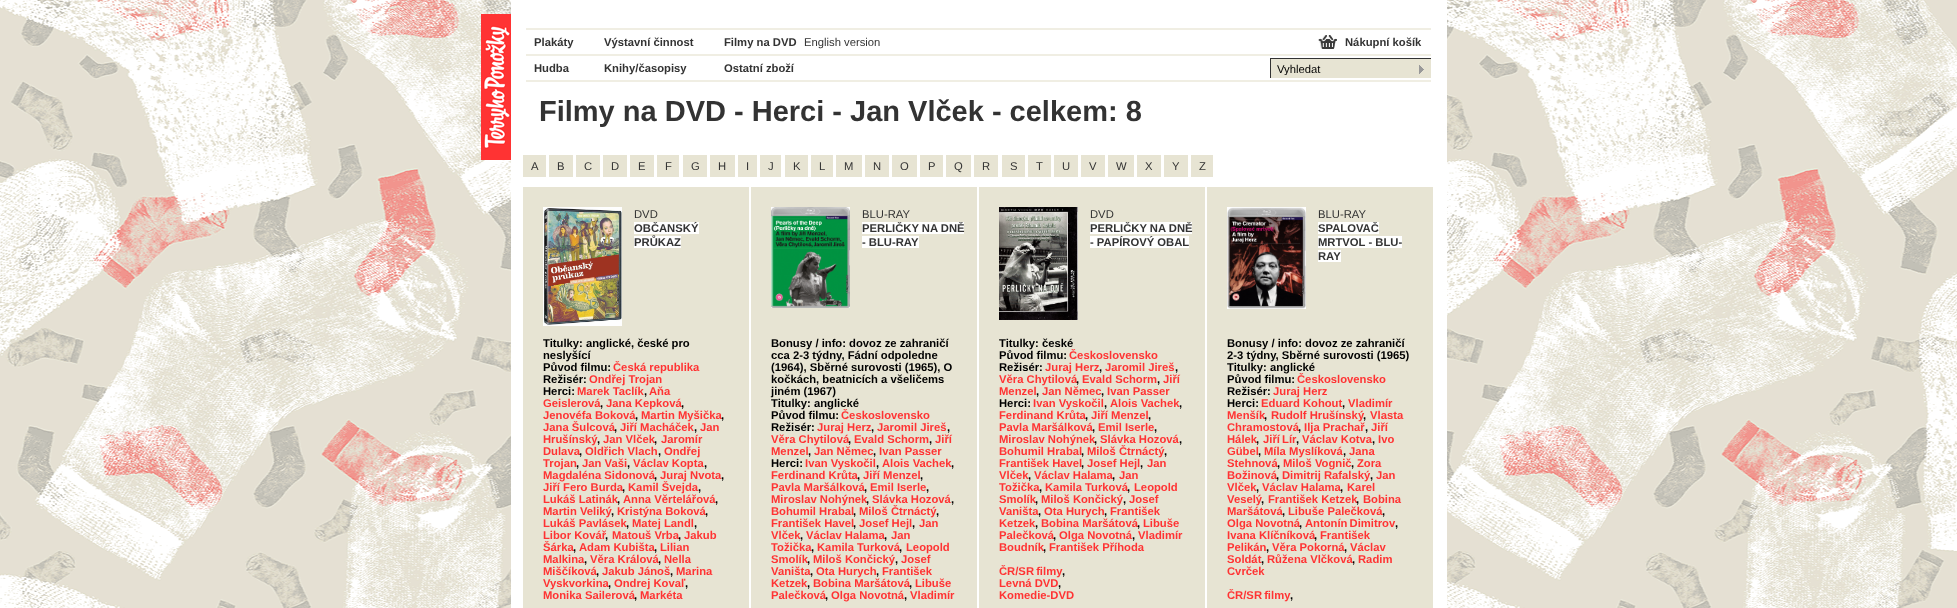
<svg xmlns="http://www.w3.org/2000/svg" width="1957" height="608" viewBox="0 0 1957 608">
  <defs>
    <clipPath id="clip1"><path d="M1277 63h130v12H1277z"/></clipPath>
  </defs>
  <rect width="100%" height="100%" fill="#fff"/>
  <image x="0" y="0" width="1957" height="608" href="img/1.png"/>
  <path d="M511 0h936v90H511z" fill="#fff"/>
  <path d="M481 14h30v146H481z" fill="#f33"/>
  <image x="483" y="25" width="28" height="124" href="img/2.png"/>
  <image x="526" y="28" width="905" height="54" href="img/3.png"/>
  <image x="1318" y="35" width="19" height="14" href="img/4.png"/>
  <path d="M1271 59h160v19H1271z" fill="#e7e4d3"/>
  <path d="M1270 58h161v1H1270z" fill="#333"/>
  <path d="M1270 58h1v20H1270z" fill="#333"/>
  <image x="1419" y="65" width="5" height="9" href="img/5.png"/>
  <path d="M511 90h936v518H511z" fill="#fff"/>
  <path d="M523 155h23v22H523z" fill="#e7e4d3"/>
  <path d="M549 155h24v22H549z" fill="#e7e4d3"/>
  <path d="M576 155h24v22H576z" fill="#e7e4d3"/>
  <path d="M603 155h24v22H603z" fill="#e7e4d3"/>
  <path d="M630 155h24v22H630z" fill="#e7e4d3"/>
  <path d="M657 155h22v22H657z" fill="#e7e4d3"/>
  <path d="M683 155h24v22H683z" fill="#e7e4d3"/>
  <path d="M710 155h25v22H710z" fill="#e7e4d3"/>
  <path d="M738 155h19v22H738z" fill="#e7e4d3"/>
  <path d="M760 155h21v22H760z" fill="#e7e4d3"/>
  <path d="M785 155h23v22H785z" fill="#e7e4d3"/>
  <path d="M811 155h22v22H811z" fill="#e7e4d3"/>
  <path d="M836 155h26v22H836z" fill="#e7e4d3"/>
  <path d="M865 155h24v22H865z" fill="#e7e4d3"/>
  <path d="M892 155h25v22H892z" fill="#e7e4d3"/>
  <path d="M920 155h23v22H920z" fill="#e7e4d3"/>
  <path d="M946 155h25v22H946z" fill="#e7e4d3"/>
  <path d="M974 155h24v22H974z" fill="#e7e4d3"/>
  <path d="M1002 155h23v22H1002z" fill="#e7e4d3"/>
  <path d="M1028 155h23v22H1028z" fill="#e7e4d3"/>
  <path d="M1054 155h24v22H1054z" fill="#e7e4d3"/>
  <path d="M1081 155h24v22H1081z" fill="#e7e4d3"/>
  <path d="M1108 155h26v22H1108z" fill="#e7e4d3"/>
  <path d="M1137 155h24v22H1137z" fill="#e7e4d3"/>
  <path d="M1164 155h24v22H1164z" fill="#e7e4d3"/>
  <path d="M1191 155h22v22H1191z" fill="#e7e4d3"/>
  <path d="M523 187h226v421H523z" fill="#e7e4d3"/>
  <image x="543" y="207" width="79" height="119" href="img/6.png"/>
  <path d="M634 222h65v12H634z" fill="#fff"/>
  <path d="M634 236h47v12H634z" fill="#fff"/>
  <path d="M751 187h226v421H751z" fill="#e7e4d3"/>
  <image x="771" y="207" width="79" height="101" href="img/7.png"/>
  <path d="M862 222h102v12H862z" fill="#fff"/>
  <path d="M862 236h57v12H862z" fill="#fff"/>
  <path d="M979 187h226v421H979z" fill="#e7e4d3"/>
  <image x="999" y="207" width="79" height="113" href="img/8.png"/>
  <path d="M1090 222h102v12H1090z" fill="#fff"/>
  <path d="M1090 236h99v12H1090z" fill="#fff"/>
  <path d="M1207 187h226v421H1207z" fill="#e7e4d3"/>
  <image x="1227" y="207" width="79" height="102" href="img/9.png"/>
  <path d="M1318 222h61v12H1318z" fill="#fff"/>
  <path d="M1318 236h84v12H1318z" fill="#fff"/>
  <path d="M1318 250h23v12H1318z" fill="#fff"/>
  <g font-family="Liberation Sans" font-size="11.25" font-weight="bold" fill="#333">
    <text x="534" y="46">Plakáty</text>
    <text x="604" y="46">Výstavní činnost</text>
    <text x="724" y="46">Filmy na DVD</text>
  </g>
  <text x="804" y="46" font-family="Liberation Sans" font-size="11.25" fill="#333">English version</text>
  <g font-family="Liberation Sans" font-size="11.25" font-weight="bold" fill="#333">
    <text x="534" y="72">Hudba</text>
    <text x="604" y="72">Knihy/časopisy</text>
    <text x="724" y="72">Ostatní zboží</text>
    <text x="1345" y="46">Nákupní košík</text>
  </g>
  <g clip-path="url(#clip1)">
    <text x="1277" y="73" font-family="Liberation Sans" font-size="11.25" fill="#000">Vyhledat</text>
  </g>
  <text x="539" y="121" font-family="Liberation Sans" font-size="29" font-weight="bold" fill="#333">Filmy na DVD - Herci - Jan Vlček - celkem: 8</text>
  <g font-family="Liberation Sans" font-size="11.25" fill="#333">
    <text x="531" y="170">A</text>
    <text x="557" y="170">B</text>
    <text x="584" y="170">C</text>
    <text x="611" y="170">D</text>
    <text x="638" y="170">E</text>
    <text x="665" y="170">F</text>
    <text x="691" y="170">G</text>
    <text x="718" y="170">H</text>
    <text x="746" y="170">I</text>
    <text x="768" y="170">J</text>
    <text x="793" y="170">K</text>
    <text x="819" y="170">L</text>
    <text x="844" y="170">M</text>
    <text x="873" y="170">N</text>
    <text x="900" y="170">O</text>
    <text x="928" y="170">P</text>
    <text x="954" y="170">Q</text>
    <text x="982" y="170">R</text>
    <text x="1010" y="170">S</text>
    <text x="1036" y="170">T</text>
    <text x="1062" y="170">U</text>
    <text x="1089" y="170">V</text>
    <text x="1116" y="170">W</text>
    <text x="1145" y="170">X</text>
    <text x="1172" y="170">Y</text>
    <text x="1199" y="170">Z</text>
    <text x="634" y="218">DVD</text>
  </g>
  <g font-family="Liberation Sans" font-size="11.25" font-weight="bold" fill="#333">
    <text x="634" y="232">OBČANSKÝ</text>
    <text x="634" y="246">PRŮKAZ</text>
  </g>
  <g font-family="Liberation Sans" font-size="11.25" font-weight="bold" fill="#000">
    <text x="543" y="347">Titulky: anglické, české pro</text>
    <text x="543" y="359">neslyšící</text>
    <text x="543" y="371">Původ filmu:</text>
  </g>
  <text x="613" y="371" font-family="Liberation Sans" font-size="11.25" font-weight="bold" fill="#f33">Česká republika</text>
  <text x="543" y="383" font-family="Liberation Sans" font-size="11.25" font-weight="bold" fill="#000">Režisér:</text>
  <text x="589" y="383" font-family="Liberation Sans" font-size="11.25" font-weight="bold" fill="#f33">Ondřej Trojan</text>
  <text x="543" y="395" font-family="Liberation Sans" font-size="11.25" font-weight="bold" fill="#000">Herci:</text>
  <text x="577" y="395" font-family="Liberation Sans" font-size="11.25" font-weight="bold" fill="#f33">Marek Taclík</text>
  <text x="644" y="395" font-family="Liberation Sans" font-size="11.25" font-weight="bold" fill="#000">,</text>
  <g font-family="Liberation Sans" font-size="11.25" font-weight="bold" fill="#f33">
    <text x="649" y="395">Aňa</text>
    <text x="543" y="407">Geislerová</text>
  </g>
  <text x="600" y="407" font-family="Liberation Sans" font-size="11.25" font-weight="bold" fill="#000">,</text>
  <text x="606" y="407" font-family="Liberation Sans" font-size="11.25" font-weight="bold" fill="#f33">Jana Kepková</text>
  <text x="681" y="407" font-family="Liberation Sans" font-size="11.25" font-weight="bold" fill="#000">,</text>
  <text x="543" y="419" font-family="Liberation Sans" font-size="11.25" font-weight="bold" fill="#f33">Jenovéfa Boková</text>
  <text x="635" y="419" font-family="Liberation Sans" font-size="11.25" font-weight="bold" fill="#000">,</text>
  <text x="641" y="419" font-family="Liberation Sans" font-size="11.25" font-weight="bold" fill="#f33">Martin Myšička</text>
  <text x="721" y="419" font-family="Liberation Sans" font-size="11.25" font-weight="bold" fill="#000">,</text>
  <text x="543" y="431" font-family="Liberation Sans" font-size="11.25" font-weight="bold" fill="#f33">Jana Šulcová</text>
  <text x="614" y="431" font-family="Liberation Sans" font-size="11.25" font-weight="bold" fill="#000">,</text>
  <text x="620" y="431" font-family="Liberation Sans" font-size="11.25" font-weight="bold" fill="#f33">Jiří Macháček</text>
  <text x="694" y="431" font-family="Liberation Sans" font-size="11.25" font-weight="bold" fill="#000">,</text>
  <g font-family="Liberation Sans" font-size="11.25" font-weight="bold" fill="#f33">
    <text x="700" y="431">Jan</text>
    <text x="543" y="443">Hrušínský</text>
  </g>
  <text x="597" y="443" font-family="Liberation Sans" font-size="11.25" font-weight="bold" fill="#000">,</text>
  <text x="603" y="443" font-family="Liberation Sans" font-size="11.25" font-weight="bold" fill="#f33">Jan Vlček</text>
  <text x="654" y="443" font-family="Liberation Sans" font-size="11.25" font-weight="bold" fill="#000">,</text>
  <g font-family="Liberation Sans" font-size="11.25" font-weight="bold" fill="#f33">
    <text x="661" y="443">Jaromír</text>
    <text x="543" y="455">Dulava</text>
  </g>
  <text x="579" y="455" font-family="Liberation Sans" font-size="11.25" font-weight="bold" fill="#000">,</text>
  <text x="585" y="455" font-family="Liberation Sans" font-size="11.25" font-weight="bold" fill="#f33">Oldřich Vlach</text>
  <text x="658" y="455" font-family="Liberation Sans" font-size="11.25" font-weight="bold" fill="#000">,</text>
  <g font-family="Liberation Sans" font-size="11.25" font-weight="bold" fill="#f33">
    <text x="664" y="455">Ondřej</text>
    <text x="543" y="467">Trojan</text>
  </g>
  <text x="576" y="467" font-family="Liberation Sans" font-size="11.25" font-weight="bold" fill="#000">,</text>
  <text x="582" y="467" font-family="Liberation Sans" font-size="11.25" font-weight="bold" fill="#f33">Jan Vaši</text>
  <text x="627" y="467" font-family="Liberation Sans" font-size="11.25" font-weight="bold" fill="#000">,</text>
  <text x="633" y="467" font-family="Liberation Sans" font-size="11.25" font-weight="bold" fill="#f33">Václav Kopta</text>
  <text x="704" y="467" font-family="Liberation Sans" font-size="11.25" font-weight="bold" fill="#000">,</text>
  <text x="543" y="479" font-family="Liberation Sans" font-size="11.25" font-weight="bold" fill="#f33">Magdaléna Sidonová</text>
  <text x="654" y="479" font-family="Liberation Sans" font-size="11.25" font-weight="bold" fill="#000">,</text>
  <text x="660" y="479" font-family="Liberation Sans" font-size="11.25" font-weight="bold" fill="#f33">Juraj Nvota</text>
  <text x="721" y="479" font-family="Liberation Sans" font-size="11.25" font-weight="bold" fill="#000">,</text>
  <text x="543" y="491" font-family="Liberation Sans" font-size="11.25" font-weight="bold" fill="#f33">Jiří Fero Burda</text>
  <text x="622" y="491" font-family="Liberation Sans" font-size="11.25" font-weight="bold" fill="#000">,</text>
  <text x="628" y="491" font-family="Liberation Sans" font-size="11.25" font-weight="bold" fill="#f33">Kamil Švejda</text>
  <text x="698" y="491" font-family="Liberation Sans" font-size="11.25" font-weight="bold" fill="#000">,</text>
  <text x="543" y="503" font-family="Liberation Sans" font-size="11.25" font-weight="bold" fill="#f33">Lukáš Latinák</text>
  <text x="617" y="503" font-family="Liberation Sans" font-size="11.25" font-weight="bold" fill="#000">,</text>
  <text x="623" y="503" font-family="Liberation Sans" font-size="11.25" font-weight="bold" fill="#f33">Anna Věrtelářová</text>
  <text x="715" y="503" font-family="Liberation Sans" font-size="11.25" font-weight="bold" fill="#000">,</text>
  <text x="543" y="515" font-family="Liberation Sans" font-size="11.25" font-weight="bold" fill="#f33">Martin Veliký</text>
  <text x="611" y="515" font-family="Liberation Sans" font-size="11.25" font-weight="bold" fill="#000">,</text>
  <text x="617" y="515" font-family="Liberation Sans" font-size="11.25" font-weight="bold" fill="#f33">Kristýna Boková</text>
  <text x="705" y="515" font-family="Liberation Sans" font-size="11.25" font-weight="bold" fill="#000">,</text>
  <text x="543" y="527" font-family="Liberation Sans" font-size="11.25" font-weight="bold" fill="#f33">Lukáš Pavlásek</text>
  <text x="626" y="527" font-family="Liberation Sans" font-size="11.25" font-weight="bold" fill="#000">,</text>
  <text x="632" y="527" font-family="Liberation Sans" font-size="11.25" font-weight="bold" fill="#f33">Matej Landl</text>
  <text x="694" y="527" font-family="Liberation Sans" font-size="11.25" font-weight="bold" fill="#000">,</text>
  <text x="543" y="539" font-family="Liberation Sans" font-size="11.25" font-weight="bold" fill="#f33">Libor Kovář</text>
  <text x="605" y="539" font-family="Liberation Sans" font-size="11.25" font-weight="bold" fill="#000">,</text>
  <text x="612" y="539" font-family="Liberation Sans" font-size="11.25" font-weight="bold" fill="#f33">Matouš Vrba</text>
  <text x="678" y="539" font-family="Liberation Sans" font-size="11.25" font-weight="bold" fill="#000">,</text>
  <g font-family="Liberation Sans" font-size="11.25" font-weight="bold" fill="#f33">
    <text x="684" y="539">Jakub</text>
    <text x="543" y="551">Šárka</text>
  </g>
  <text x="573" y="551" font-family="Liberation Sans" font-size="11.25" font-weight="bold" fill="#000">,</text>
  <text x="579" y="551" font-family="Liberation Sans" font-size="11.25" font-weight="bold" fill="#f33">Adam Kubišta</text>
  <text x="654" y="551" font-family="Liberation Sans" font-size="11.25" font-weight="bold" fill="#000">,</text>
  <g font-family="Liberation Sans" font-size="11.25" font-weight="bold" fill="#f33">
    <text x="660" y="551">Lilian</text>
    <text x="543" y="563">Malkina</text>
  </g>
  <text x="584" y="563" font-family="Liberation Sans" font-size="11.25" font-weight="bold" fill="#000">,</text>
  <text x="590" y="563" font-family="Liberation Sans" font-size="11.25" font-weight="bold" fill="#f33">Věra Králová</text>
  <text x="658" y="563" font-family="Liberation Sans" font-size="11.25" font-weight="bold" fill="#000">,</text>
  <g font-family="Liberation Sans" font-size="11.25" font-weight="bold" fill="#f33">
    <text x="664" y="563">Nella</text>
    <text x="543" y="575">Miščíková</text>
  </g>
  <text x="596" y="575" font-family="Liberation Sans" font-size="11.25" font-weight="bold" fill="#000">,</text>
  <text x="602" y="575" font-family="Liberation Sans" font-size="11.25" font-weight="bold" fill="#f33">Jakub Jánoš</text>
  <text x="670" y="575" font-family="Liberation Sans" font-size="11.25" font-weight="bold" fill="#000">,</text>
  <g font-family="Liberation Sans" font-size="11.25" font-weight="bold" fill="#f33">
    <text x="676" y="575">Marina</text>
    <text x="543" y="587">Vyskvorkina</text>
  </g>
  <text x="608" y="587" font-family="Liberation Sans" font-size="11.25" font-weight="bold" fill="#000">,</text>
  <text x="614" y="587" font-family="Liberation Sans" font-size="11.25" font-weight="bold" fill="#f33">Ondrej Kovaľ</text>
  <text x="685" y="587" font-family="Liberation Sans" font-size="11.25" font-weight="bold" fill="#000">,</text>
  <text x="543" y="599" font-family="Liberation Sans" font-size="11.25" font-weight="bold" fill="#f33">Monika Sailerová</text>
  <text x="634" y="599" font-family="Liberation Sans" font-size="11.25" font-weight="bold" fill="#000">,</text>
  <text x="640" y="599" font-family="Liberation Sans" font-size="11.25" font-weight="bold" fill="#f33">Markéta</text>
  <text x="862" y="218" font-family="Liberation Sans" font-size="11.25" fill="#333">BLU-RAY</text>
  <g font-family="Liberation Sans" font-size="11.25" font-weight="bold" fill="#333">
    <text x="862" y="232">PERLIČKY NA DNĚ</text>
    <text x="862" y="246">- BLU-RAY</text>
  </g>
  <g font-family="Liberation Sans" font-size="11.25" font-weight="bold" fill="#000">
    <text x="771" y="347">Bonusy / info: dovoz ze zahraničí</text>
    <text x="771" y="359">cca 2-3 týdny, Fádní odpoledne</text>
    <text x="771" y="371">(1964), Sběrné surovosti (1965), O</text>
    <text x="771" y="383">kočkách, beatnicích a všeličems</text>
    <text x="771" y="395">jiném (1967)</text>
    <text x="771" y="407">Titulky: anglické</text>
    <text x="771" y="419">Původ filmu:</text>
  </g>
  <text x="841" y="419" font-family="Liberation Sans" font-size="11.25" font-weight="bold" fill="#f33">Československo</text>
  <text x="771" y="431" font-family="Liberation Sans" font-size="11.25" font-weight="bold" fill="#000">Režisér:</text>
  <text x="817" y="431" font-family="Liberation Sans" font-size="11.25" font-weight="bold" fill="#f33">Juraj Herz</text>
  <text x="871" y="431" font-family="Liberation Sans" font-size="11.25" font-weight="bold" fill="#000">,</text>
  <text x="877" y="431" font-family="Liberation Sans" font-size="11.25" font-weight="bold" fill="#f33">Jaromil Jireš</text>
  <text x="947" y="431" font-family="Liberation Sans" font-size="11.25" font-weight="bold" fill="#000">,</text>
  <text x="771" y="443" font-family="Liberation Sans" font-size="11.25" font-weight="bold" fill="#f33">Věra Chytilová</text>
  <text x="848" y="443" font-family="Liberation Sans" font-size="11.25" font-weight="bold" fill="#000">,</text>
  <text x="854" y="443" font-family="Liberation Sans" font-size="11.25" font-weight="bold" fill="#f33">Evald Schorm</text>
  <text x="929" y="443" font-family="Liberation Sans" font-size="11.25" font-weight="bold" fill="#000">,</text>
  <g font-family="Liberation Sans" font-size="11.25" font-weight="bold" fill="#f33">
    <text x="935" y="443">Jiří</text>
    <text x="771" y="455">Menzel</text>
  </g>
  <text x="808" y="455" font-family="Liberation Sans" font-size="11.25" font-weight="bold" fill="#000">,</text>
  <text x="814" y="455" font-family="Liberation Sans" font-size="11.25" font-weight="bold" fill="#f33">Jan Němec</text>
  <text x="873" y="455" font-family="Liberation Sans" font-size="11.25" font-weight="bold" fill="#000">,</text>
  <text x="879" y="455" font-family="Liberation Sans" font-size="11.25" font-weight="bold" fill="#f33">Ivan Passer</text>
  <text x="771" y="467" font-family="Liberation Sans" font-size="11.25" font-weight="bold" fill="#000">Herci:</text>
  <text x="805" y="467" font-family="Liberation Sans" font-size="11.25" font-weight="bold" fill="#f33">Ivan Vyskočil</text>
  <text x="876" y="467" font-family="Liberation Sans" font-size="11.25" font-weight="bold" fill="#000">,</text>
  <text x="882" y="467" font-family="Liberation Sans" font-size="11.25" font-weight="bold" fill="#f33">Alois Vachek</text>
  <text x="951" y="467" font-family="Liberation Sans" font-size="11.25" font-weight="bold" fill="#000">,</text>
  <text x="771" y="479" font-family="Liberation Sans" font-size="11.25" font-weight="bold" fill="#f33">Ferdinand Krůta</text>
  <text x="857" y="479" font-family="Liberation Sans" font-size="11.25" font-weight="bold" fill="#000">,</text>
  <text x="863" y="479" font-family="Liberation Sans" font-size="11.25" font-weight="bold" fill="#f33">Jiří Menzel</text>
  <text x="920" y="479" font-family="Liberation Sans" font-size="11.25" font-weight="bold" fill="#000">,</text>
  <text x="771" y="491" font-family="Liberation Sans" font-size="11.25" font-weight="bold" fill="#f33">Pavla Maršálková</text>
  <text x="864" y="491" font-family="Liberation Sans" font-size="11.25" font-weight="bold" fill="#000">,</text>
  <text x="870" y="491" font-family="Liberation Sans" font-size="11.25" font-weight="bold" fill="#f33">Emil Iserle</text>
  <text x="926" y="491" font-family="Liberation Sans" font-size="11.25" font-weight="bold" fill="#000">,</text>
  <text x="771" y="503" font-family="Liberation Sans" font-size="11.25" font-weight="bold" fill="#f33">Miroslav Nohýnek</text>
  <text x="866" y="503" font-family="Liberation Sans" font-size="11.25" font-weight="bold" fill="#000">,</text>
  <text x="872" y="503" font-family="Liberation Sans" font-size="11.25" font-weight="bold" fill="#f33">Slávka Hozová</text>
  <text x="951" y="503" font-family="Liberation Sans" font-size="11.25" font-weight="bold" fill="#000">,</text>
  <text x="771" y="515" font-family="Liberation Sans" font-size="11.25" font-weight="bold" fill="#f33">Bohumil Hrabal</text>
  <text x="853" y="515" font-family="Liberation Sans" font-size="11.25" font-weight="bold" fill="#000">,</text>
  <text x="859" y="515" font-family="Liberation Sans" font-size="11.25" font-weight="bold" fill="#f33">Miloš Čtrnáctý</text>
  <text x="936" y="515" font-family="Liberation Sans" font-size="11.25" font-weight="bold" fill="#000">,</text>
  <text x="771" y="527" font-family="Liberation Sans" font-size="11.25" font-weight="bold" fill="#f33">František Havel</text>
  <text x="853" y="527" font-family="Liberation Sans" font-size="11.25" font-weight="bold" fill="#000">,</text>
  <text x="859" y="527" font-family="Liberation Sans" font-size="11.25" font-weight="bold" fill="#f33">Josef Hejl</text>
  <text x="912" y="527" font-family="Liberation Sans" font-size="11.25" font-weight="bold" fill="#000">,</text>
  <g font-family="Liberation Sans" font-size="11.25" font-weight="bold" fill="#f33">
    <text x="919" y="527">Jan</text>
    <text x="771" y="539">Vlček</text>
  </g>
  <text x="800" y="539" font-family="Liberation Sans" font-size="11.25" font-weight="bold" fill="#000">,</text>
  <text x="806" y="539" font-family="Liberation Sans" font-size="11.25" font-weight="bold" fill="#f33">Václav Halama</text>
  <text x="884" y="539" font-family="Liberation Sans" font-size="11.25" font-weight="bold" fill="#000">,</text>
  <g font-family="Liberation Sans" font-size="11.25" font-weight="bold" fill="#f33">
    <text x="891" y="539">Jan</text>
    <text x="771" y="551">Tožička</text>
  </g>
  <text x="811" y="551" font-family="Liberation Sans" font-size="11.25" font-weight="bold" fill="#000">,</text>
  <text x="817" y="551" font-family="Liberation Sans" font-size="11.25" font-weight="bold" fill="#f33">Kamila Turková</text>
  <text x="899" y="551" font-family="Liberation Sans" font-size="11.25" font-weight="bold" fill="#000">,</text>
  <g font-family="Liberation Sans" font-size="11.25" font-weight="bold" fill="#f33">
    <text x="906" y="551">Leopold</text>
    <text x="771" y="563">Smolík</text>
  </g>
  <text x="807" y="563" font-family="Liberation Sans" font-size="11.25" font-weight="bold" fill="#000">,</text>
  <text x="813" y="563" font-family="Liberation Sans" font-size="11.25" font-weight="bold" fill="#f33">Miloš Končický</text>
  <text x="895" y="563" font-family="Liberation Sans" font-size="11.25" font-weight="bold" fill="#000">,</text>
  <g font-family="Liberation Sans" font-size="11.25" font-weight="bold" fill="#f33">
    <text x="901" y="563">Josef</text>
    <text x="771" y="575">Vaništa</text>
  </g>
  <text x="810" y="575" font-family="Liberation Sans" font-size="11.25" font-weight="bold" fill="#000">,</text>
  <text x="816" y="575" font-family="Liberation Sans" font-size="11.25" font-weight="bold" fill="#f33">Ota Hurych</text>
  <text x="876" y="575" font-family="Liberation Sans" font-size="11.25" font-weight="bold" fill="#000">,</text>
  <g font-family="Liberation Sans" font-size="11.25" font-weight="bold" fill="#f33">
    <text x="882" y="575">František</text>
    <text x="771" y="587">Ketzek</text>
  </g>
  <text x="807" y="587" font-family="Liberation Sans" font-size="11.25" font-weight="bold" fill="#000">,</text>
  <text x="813" y="587" font-family="Liberation Sans" font-size="11.25" font-weight="bold" fill="#f33">Bobina Maršátová</text>
  <text x="909" y="587" font-family="Liberation Sans" font-size="11.25" font-weight="bold" fill="#000">,</text>
  <g font-family="Liberation Sans" font-size="11.25" font-weight="bold" fill="#f33">
    <text x="915" y="587">Libuše</text>
    <text x="771" y="599">Palečková</text>
  </g>
  <text x="825" y="599" font-family="Liberation Sans" font-size="11.25" font-weight="bold" fill="#000">,</text>
  <text x="831" y="599" font-family="Liberation Sans" font-size="11.25" font-weight="bold" fill="#f33">Olga Novotná</text>
  <text x="904" y="599" font-family="Liberation Sans" font-size="11.25" font-weight="bold" fill="#000">,</text>
  <text x="910" y="599" font-family="Liberation Sans" font-size="11.25" font-weight="bold" fill="#f33">Vladimír</text>
  <text x="1090" y="218" font-family="Liberation Sans" font-size="11.25" fill="#333">DVD</text>
  <g font-family="Liberation Sans" font-size="11.25" font-weight="bold" fill="#333">
    <text x="1090" y="232">PERLIČKY NA DNĚ</text>
    <text x="1090" y="246">- PAPÍROVÝ OBAL</text>
  </g>
  <g font-family="Liberation Sans" font-size="11.25" font-weight="bold" fill="#000">
    <text x="999" y="347">Titulky: české</text>
    <text x="999" y="359">Původ filmu:</text>
  </g>
  <text x="1069" y="359" font-family="Liberation Sans" font-size="11.25" font-weight="bold" fill="#f33">Československo</text>
  <text x="999" y="371" font-family="Liberation Sans" font-size="11.25" font-weight="bold" fill="#000">Režisér:</text>
  <text x="1045" y="371" font-family="Liberation Sans" font-size="11.25" font-weight="bold" fill="#f33">Juraj Herz</text>
  <text x="1099" y="371" font-family="Liberation Sans" font-size="11.25" font-weight="bold" fill="#000">,</text>
  <text x="1105" y="371" font-family="Liberation Sans" font-size="11.25" font-weight="bold" fill="#f33">Jaromil Jireš</text>
  <text x="1175" y="371" font-family="Liberation Sans" font-size="11.25" font-weight="bold" fill="#000">,</text>
  <text x="999" y="383" font-family="Liberation Sans" font-size="11.25" font-weight="bold" fill="#f33">Věra Chytilová</text>
  <text x="1076" y="383" font-family="Liberation Sans" font-size="11.25" font-weight="bold" fill="#000">,</text>
  <text x="1082" y="383" font-family="Liberation Sans" font-size="11.25" font-weight="bold" fill="#f33">Evald Schorm</text>
  <text x="1157" y="383" font-family="Liberation Sans" font-size="11.25" font-weight="bold" fill="#000">,</text>
  <g font-family="Liberation Sans" font-size="11.25" font-weight="bold" fill="#f33">
    <text x="1163" y="383">Jiří</text>
    <text x="999" y="395">Menzel</text>
  </g>
  <text x="1036" y="395" font-family="Liberation Sans" font-size="11.25" font-weight="bold" fill="#000">,</text>
  <text x="1042" y="395" font-family="Liberation Sans" font-size="11.25" font-weight="bold" fill="#f33">Jan Němec</text>
  <text x="1101" y="395" font-family="Liberation Sans" font-size="11.25" font-weight="bold" fill="#000">,</text>
  <text x="1107" y="395" font-family="Liberation Sans" font-size="11.25" font-weight="bold" fill="#f33">Ivan Passer</text>
  <text x="999" y="407" font-family="Liberation Sans" font-size="11.25" font-weight="bold" fill="#000">Herci:</text>
  <text x="1033" y="407" font-family="Liberation Sans" font-size="11.25" font-weight="bold" fill="#f33">Ivan Vyskočil</text>
  <text x="1104" y="407" font-family="Liberation Sans" font-size="11.25" font-weight="bold" fill="#000">,</text>
  <text x="1110" y="407" font-family="Liberation Sans" font-size="11.25" font-weight="bold" fill="#f33">Alois Vachek</text>
  <text x="1179" y="407" font-family="Liberation Sans" font-size="11.25" font-weight="bold" fill="#000">,</text>
  <text x="999" y="419" font-family="Liberation Sans" font-size="11.25" font-weight="bold" fill="#f33">Ferdinand Krůta</text>
  <text x="1085" y="419" font-family="Liberation Sans" font-size="11.25" font-weight="bold" fill="#000">,</text>
  <text x="1091" y="419" font-family="Liberation Sans" font-size="11.25" font-weight="bold" fill="#f33">Jiří Menzel</text>
  <text x="1148" y="419" font-family="Liberation Sans" font-size="11.25" font-weight="bold" fill="#000">,</text>
  <text x="999" y="431" font-family="Liberation Sans" font-size="11.25" font-weight="bold" fill="#f33">Pavla Maršálková</text>
  <text x="1092" y="431" font-family="Liberation Sans" font-size="11.25" font-weight="bold" fill="#000">,</text>
  <text x="1098" y="431" font-family="Liberation Sans" font-size="11.25" font-weight="bold" fill="#f33">Emil Iserle</text>
  <text x="1154" y="431" font-family="Liberation Sans" font-size="11.25" font-weight="bold" fill="#000">,</text>
  <text x="999" y="443" font-family="Liberation Sans" font-size="11.25" font-weight="bold" fill="#f33">Miroslav Nohýnek</text>
  <text x="1094" y="443" font-family="Liberation Sans" font-size="11.25" font-weight="bold" fill="#000">,</text>
  <text x="1100" y="443" font-family="Liberation Sans" font-size="11.25" font-weight="bold" fill="#f33">Slávka Hozová</text>
  <text x="1179" y="443" font-family="Liberation Sans" font-size="11.25" font-weight="bold" fill="#000">,</text>
  <text x="999" y="455" font-family="Liberation Sans" font-size="11.25" font-weight="bold" fill="#f33">Bohumil Hrabal</text>
  <text x="1081" y="455" font-family="Liberation Sans" font-size="11.25" font-weight="bold" fill="#000">,</text>
  <text x="1087" y="455" font-family="Liberation Sans" font-size="11.25" font-weight="bold" fill="#f33">Miloš Čtrnáctý</text>
  <text x="1164" y="455" font-family="Liberation Sans" font-size="11.25" font-weight="bold" fill="#000">,</text>
  <text x="999" y="467" font-family="Liberation Sans" font-size="11.25" font-weight="bold" fill="#f33">František Havel</text>
  <text x="1081" y="467" font-family="Liberation Sans" font-size="11.25" font-weight="bold" fill="#000">,</text>
  <text x="1087" y="467" font-family="Liberation Sans" font-size="11.25" font-weight="bold" fill="#f33">Josef Hejl</text>
  <text x="1140" y="467" font-family="Liberation Sans" font-size="11.25" font-weight="bold" fill="#000">,</text>
  <g font-family="Liberation Sans" font-size="11.25" font-weight="bold" fill="#f33">
    <text x="1147" y="467">Jan</text>
    <text x="999" y="479">Vlček</text>
  </g>
  <text x="1028" y="479" font-family="Liberation Sans" font-size="11.25" font-weight="bold" fill="#000">,</text>
  <text x="1034" y="479" font-family="Liberation Sans" font-size="11.25" font-weight="bold" fill="#f33">Václav Halama</text>
  <text x="1112" y="479" font-family="Liberation Sans" font-size="11.25" font-weight="bold" fill="#000">,</text>
  <g font-family="Liberation Sans" font-size="11.25" font-weight="bold" fill="#f33">
    <text x="1119" y="479">Jan</text>
    <text x="999" y="491">Tožička</text>
  </g>
  <text x="1039" y="491" font-family="Liberation Sans" font-size="11.25" font-weight="bold" fill="#000">,</text>
  <text x="1045" y="491" font-family="Liberation Sans" font-size="11.25" font-weight="bold" fill="#f33">Kamila Turková</text>
  <text x="1127" y="491" font-family="Liberation Sans" font-size="11.25" font-weight="bold" fill="#000">,</text>
  <g font-family="Liberation Sans" font-size="11.25" font-weight="bold" fill="#f33">
    <text x="1134" y="491">Leopold</text>
    <text x="999" y="503">Smolík</text>
  </g>
  <text x="1035" y="503" font-family="Liberation Sans" font-size="11.25" font-weight="bold" fill="#000">,</text>
  <text x="1041" y="503" font-family="Liberation Sans" font-size="11.25" font-weight="bold" fill="#f33">Miloš Končický</text>
  <text x="1123" y="503" font-family="Liberation Sans" font-size="11.25" font-weight="bold" fill="#000">,</text>
  <g font-family="Liberation Sans" font-size="11.25" font-weight="bold" fill="#f33">
    <text x="1129" y="503">Josef</text>
    <text x="999" y="515">Vaništa</text>
  </g>
  <text x="1038" y="515" font-family="Liberation Sans" font-size="11.25" font-weight="bold" fill="#000">,</text>
  <text x="1044" y="515" font-family="Liberation Sans" font-size="11.25" font-weight="bold" fill="#f33">Ota Hurych</text>
  <text x="1104" y="515" font-family="Liberation Sans" font-size="11.25" font-weight="bold" fill="#000">,</text>
  <g font-family="Liberation Sans" font-size="11.25" font-weight="bold" fill="#f33">
    <text x="1110" y="515">František</text>
    <text x="999" y="527">Ketzek</text>
  </g>
  <text x="1035" y="527" font-family="Liberation Sans" font-size="11.25" font-weight="bold" fill="#000">,</text>
  <text x="1041" y="527" font-family="Liberation Sans" font-size="11.25" font-weight="bold" fill="#f33">Bobina Maršátová</text>
  <text x="1137" y="527" font-family="Liberation Sans" font-size="11.25" font-weight="bold" fill="#000">,</text>
  <g font-family="Liberation Sans" font-size="11.25" font-weight="bold" fill="#f33">
    <text x="1143" y="527">Libuše</text>
    <text x="999" y="539">Palečková</text>
  </g>
  <text x="1053" y="539" font-family="Liberation Sans" font-size="11.25" font-weight="bold" fill="#000">,</text>
  <text x="1059" y="539" font-family="Liberation Sans" font-size="11.25" font-weight="bold" fill="#f33">Olga Novotná</text>
  <text x="1132" y="539" font-family="Liberation Sans" font-size="11.25" font-weight="bold" fill="#000">,</text>
  <g font-family="Liberation Sans" font-size="11.25" font-weight="bold" fill="#f33">
    <text x="1138" y="539">Vladimír</text>
    <text x="999" y="551">Boudník</text>
  </g>
  <text x="1043" y="551" font-family="Liberation Sans" font-size="11.25" font-weight="bold" fill="#000">,</text>
  <g font-family="Liberation Sans" font-size="11.25" font-weight="bold" fill="#f33">
    <text x="1049" y="551">František Příhoda</text>
    <text x="999" y="575" word-spacing="-1">ČR/SR filmy</text>
  </g>
  <text x="1062" y="575" font-family="Liberation Sans" font-size="11.25" font-weight="bold" fill="#000">,</text>
  <text x="999" y="587" font-family="Liberation Sans" font-size="11.25" font-weight="bold" fill="#f33">Levná DVD</text>
  <text x="1058" y="587" font-family="Liberation Sans" font-size="11.25" font-weight="bold" fill="#000">,</text>
  <text x="999" y="599" font-family="Liberation Sans" font-size="11.25" font-weight="bold" fill="#f33">Komedie-DVD</text>
  <text x="1318" y="218" font-family="Liberation Sans" font-size="11.25" fill="#333">BLU-RAY</text>
  <g font-family="Liberation Sans" font-size="11.25" font-weight="bold" fill="#333">
    <text x="1318" y="232">SPALOVAČ</text>
    <text x="1318" y="246">MRTVOL - BLU-</text>
    <text x="1318" y="260">RAY</text>
  </g>
  <g font-family="Liberation Sans" font-size="11.25" font-weight="bold" fill="#000">
    <text x="1227" y="347">Bonusy / info: dovoz ze zahraničí</text>
    <text x="1227" y="359">2-3 týdny, Sběrné surovosti (1965)</text>
    <text x="1227" y="371">Titulky: anglické</text>
    <text x="1227" y="383">Původ filmu:</text>
  </g>
  <text x="1297" y="383" font-family="Liberation Sans" font-size="11.25" font-weight="bold" fill="#f33">Československo</text>
  <text x="1227" y="395" font-family="Liberation Sans" font-size="11.25" font-weight="bold" fill="#000">Režisér:</text>
  <text x="1273" y="395" font-family="Liberation Sans" font-size="11.25" font-weight="bold" fill="#f33">Juraj Herz</text>
  <text x="1227" y="407" font-family="Liberation Sans" font-size="11.25" font-weight="bold" fill="#000">Herci:</text>
  <text x="1261" y="407" font-family="Liberation Sans" font-size="11.25" font-weight="bold" fill="#f33">Eduard Kohout</text>
  <text x="1342" y="407" font-family="Liberation Sans" font-size="11.25" font-weight="bold" fill="#000">,</text>
  <g font-family="Liberation Sans" font-size="11.25" font-weight="bold" fill="#f33">
    <text x="1348" y="407">Vladimír</text>
    <text x="1227" y="419">Menšík</text>
  </g>
  <text x="1264" y="419" font-family="Liberation Sans" font-size="11.25" font-weight="bold" fill="#000">,</text>
  <text x="1271" y="419" font-family="Liberation Sans" font-size="11.25" font-weight="bold" fill="#f33">Rudolf Hrušínský</text>
  <text x="1363" y="419" font-family="Liberation Sans" font-size="11.25" font-weight="bold" fill="#000">,</text>
  <g font-family="Liberation Sans" font-size="11.25" font-weight="bold" fill="#f33">
    <text x="1370" y="419">Vlasta</text>
    <text x="1227" y="431">Chramostová</text>
  </g>
  <text x="1298" y="431" font-family="Liberation Sans" font-size="11.25" font-weight="bold" fill="#000">,</text>
  <text x="1304" y="431" font-family="Liberation Sans" font-size="11.25" font-weight="bold" fill="#f33">Ilja Prachař</text>
  <text x="1365" y="431" font-family="Liberation Sans" font-size="11.25" font-weight="bold" fill="#000">,</text>
  <g font-family="Liberation Sans" font-size="11.25" font-weight="bold" fill="#f33">
    <text x="1371" y="431">Jiří</text>
    <text x="1227" y="443">Hálek</text>
  </g>
  <text x="1256" y="443" font-family="Liberation Sans" font-size="11.25" font-weight="bold" fill="#000">,</text>
  <text x="1263" y="443" word-spacing="-1" font-family="Liberation Sans" font-size="11.25" font-weight="bold" fill="#f33">Jiří Lír</text>
  <text x="1296" y="443" font-family="Liberation Sans" font-size="11.25" font-weight="bold" fill="#000">,</text>
  <text x="1302" y="443" font-family="Liberation Sans" font-size="11.25" font-weight="bold" fill="#f33">Václav Kotva</text>
  <text x="1372" y="443" font-family="Liberation Sans" font-size="11.25" font-weight="bold" fill="#000">,</text>
  <g font-family="Liberation Sans" font-size="11.25" font-weight="bold" fill="#f33">
    <text x="1378" y="443">Ivo</text>
    <text x="1227" y="455">Gübel</text>
  </g>
  <text x="1258" y="455" font-family="Liberation Sans" font-size="11.25" font-weight="bold" fill="#000">,</text>
  <text x="1264" y="455" font-family="Liberation Sans" font-size="11.25" font-weight="bold" fill="#f33">Míla Myslíková</text>
  <text x="1343" y="455" font-family="Liberation Sans" font-size="11.25" font-weight="bold" fill="#000">,</text>
  <g font-family="Liberation Sans" font-size="11.25" font-weight="bold" fill="#f33">
    <text x="1349" y="455">Jana</text>
    <text x="1227" y="467">Stehnová</text>
  </g>
  <text x="1277" y="467" font-family="Liberation Sans" font-size="11.25" font-weight="bold" fill="#000">,</text>
  <text x="1283" y="467" font-family="Liberation Sans" font-size="11.25" font-weight="bold" fill="#f33">Miloš Vognič</text>
  <text x="1351" y="467" font-family="Liberation Sans" font-size="11.25" font-weight="bold" fill="#000">,</text>
  <g font-family="Liberation Sans" font-size="11.25" font-weight="bold" fill="#f33">
    <text x="1357" y="467">Zora</text>
    <text x="1227" y="479">Božinová</text>
  </g>
  <text x="1276" y="479" font-family="Liberation Sans" font-size="11.25" font-weight="bold" fill="#000">,</text>
  <text x="1282" y="479" font-family="Liberation Sans" font-size="11.25" font-weight="bold" fill="#f33">Dimitrij Rafalský</text>
  <text x="1370" y="479" font-family="Liberation Sans" font-size="11.25" font-weight="bold" fill="#000">,</text>
  <g font-family="Liberation Sans" font-size="11.25" font-weight="bold" fill="#f33">
    <text x="1376" y="479">Jan</text>
    <text x="1227" y="491">Vlček</text>
  </g>
  <text x="1256" y="491" font-family="Liberation Sans" font-size="11.25" font-weight="bold" fill="#000">,</text>
  <text x="1262" y="491" font-family="Liberation Sans" font-size="11.25" font-weight="bold" fill="#f33">Václav Halama</text>
  <text x="1340" y="491" font-family="Liberation Sans" font-size="11.25" font-weight="bold" fill="#000">,</text>
  <g font-family="Liberation Sans" font-size="11.25" font-weight="bold" fill="#f33">
    <text x="1347" y="491">Karel</text>
    <text x="1227" y="503">Veselý</text>
  </g>
  <text x="1261" y="503" font-family="Liberation Sans" font-size="11.25" font-weight="bold" fill="#000">,</text>
  <text x="1268" y="503" font-family="Liberation Sans" font-size="11.25" font-weight="bold" fill="#f33">František Ketzek</text>
  <text x="1356" y="503" font-family="Liberation Sans" font-size="11.25" font-weight="bold" fill="#000">,</text>
  <g font-family="Liberation Sans" font-size="11.25" font-weight="bold" fill="#f33">
    <text x="1363" y="503">Bobina</text>
    <text x="1227" y="515">Maršátová</text>
  </g>
  <text x="1282" y="515" font-family="Liberation Sans" font-size="11.25" font-weight="bold" fill="#000">,</text>
  <text x="1288" y="515" font-family="Liberation Sans" font-size="11.25" font-weight="bold" fill="#f33">Libuše Palečková</text>
  <text x="1382" y="515" font-family="Liberation Sans" font-size="11.25" font-weight="bold" fill="#000">,</text>
  <text x="1227" y="527" font-family="Liberation Sans" font-size="11.25" font-weight="bold" fill="#f33">Olga Novotná</text>
  <text x="1299" y="527" font-family="Liberation Sans" font-size="11.25" font-weight="bold" fill="#000">,</text>
  <text x="1305" y="527" word-spacing="-1" font-family="Liberation Sans" font-size="11.25" font-weight="bold" fill="#f33">Antonín Dimitrov</text>
  <text x="1395" y="527" font-family="Liberation Sans" font-size="11.25" font-weight="bold" fill="#000">,</text>
  <text x="1227" y="539" font-family="Liberation Sans" font-size="11.25" font-weight="bold" fill="#f33">Ivana Klíčníková</text>
  <text x="1314" y="539" font-family="Liberation Sans" font-size="11.25" font-weight="bold" fill="#000">,</text>
  <g font-family="Liberation Sans" font-size="11.25" font-weight="bold" fill="#f33">
    <text x="1320" y="539">František</text>
    <text x="1227" y="551">Pelikán</text>
  </g>
  <text x="1266" y="551" font-family="Liberation Sans" font-size="11.25" font-weight="bold" fill="#000">,</text>
  <text x="1272" y="551" font-family="Liberation Sans" font-size="11.25" font-weight="bold" fill="#f33">Věra Pokorná</text>
  <text x="1344" y="551" font-family="Liberation Sans" font-size="11.25" font-weight="bold" fill="#000">,</text>
  <g font-family="Liberation Sans" font-size="11.25" font-weight="bold" fill="#f33">
    <text x="1350" y="551">Václav</text>
    <text x="1227" y="563">Soldát</text>
  </g>
  <text x="1261" y="563" font-family="Liberation Sans" font-size="11.25" font-weight="bold" fill="#000">,</text>
  <text x="1267" y="563" font-family="Liberation Sans" font-size="11.25" font-weight="bold" fill="#f33">Růžena Vlčková</text>
  <text x="1352" y="563" font-family="Liberation Sans" font-size="11.25" font-weight="bold" fill="#000">,</text>
  <g font-family="Liberation Sans" font-size="11.25" font-weight="bold" fill="#f33">
    <text x="1358" y="563">Radim</text>
    <text x="1227" y="575">Cvrček</text>
    <text x="1227" y="599" word-spacing="-1">ČR/SR filmy</text>
  </g>
  <text x="1290" y="599" font-family="Liberation Sans" font-size="11.25" font-weight="bold" fill="#000">,</text>
</svg>
